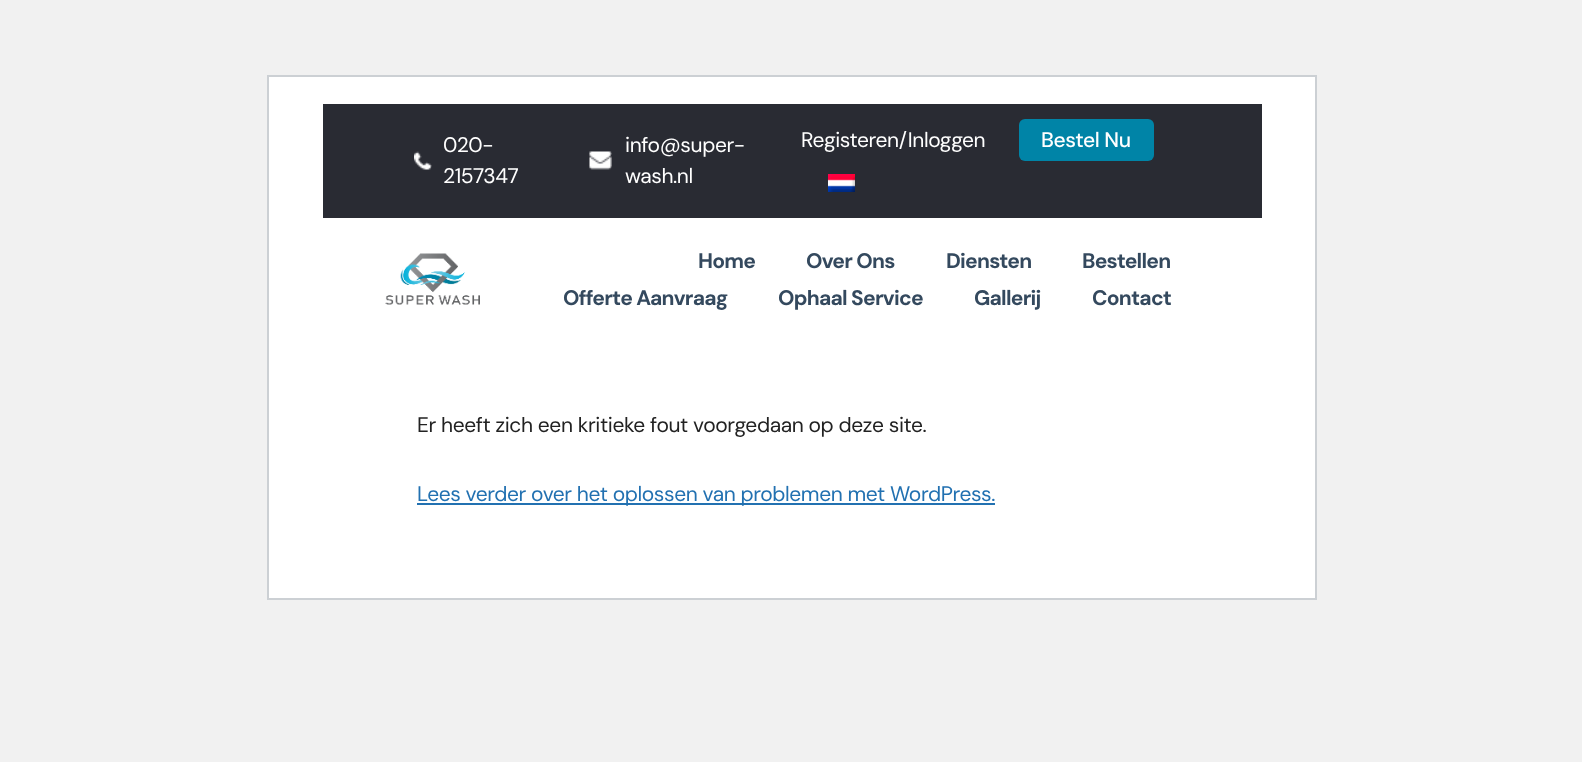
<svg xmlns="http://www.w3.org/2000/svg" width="1582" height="762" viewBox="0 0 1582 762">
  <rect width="100%" height="100%" fill="#f1f1f1"/>
  <path d="M268 76h1048v523H268z" fill="#fff" stroke="#ccd0d4" stroke-width="2"/>
  <path d="M323 104h939v114H323z" fill="#292b33"/>
  <image x="414" y="151" width="18" height="19" href="img/1.png"/>
  <image x="589" y="151" width="23" height="19" href="img/2.png"/>
  <rect x="1019" y="119" width="135" height="42" rx="6" fill="#0084a7"/>
  <image x="828" y="174" width="27" height="18" href="img/3.png"/>
  <image x="385" y="253" width="95" height="52" href="img/4.png"/>
  <path d="M417 503h578v2H417z" fill="#2271b1"/>
  <g font-family="DM Sans" font-size="21" letter-spacing="-0.4" fill="#fff">
    <text x="443" y="152">020-</text>
    <text x="443" y="183">2157347</text>
    <text x="625" y="152">info@super-</text>
    <text x="625" y="183">wash.nl</text>
    <text x="801" y="147">Registeren/Inloggen</text>
  </g>
  <text x="1041" y="147" font-family="DM Sans" font-size="21" font-weight="500" letter-spacing="-0.4" fill="#fff">Bestel Nu</text>
  <g font-family="DM Sans" font-size="21" font-weight="bold" letter-spacing="-0.75" fill="#34495e">
    <text x="698" y="268">Home</text>
    <text x="806" y="268">Over Ons</text>
    <text x="946" y="268">Diensten</text>
    <text x="1082" y="268">Bestellen</text>
    <text x="563" y="305">Offerte Aanvraag</text>
    <text x="778" y="305">Ophaal Service</text>
    <text x="974" y="305">Gallerij</text>
    <text x="1092" y="305">Contact</text>
  </g>
  <text x="417" y="432" font-family="DM Sans" font-size="21" letter-spacing="-0.4" fill="#222">Er heeft zich een kritieke fout voorgedaan op deze site.</text>
  <text x="417" y="501" font-family="DM Sans" font-size="21" letter-spacing="-0.4" fill="#2271b1">Lees verder over het oplossen van problemen met WordPress.</text>
</svg>
